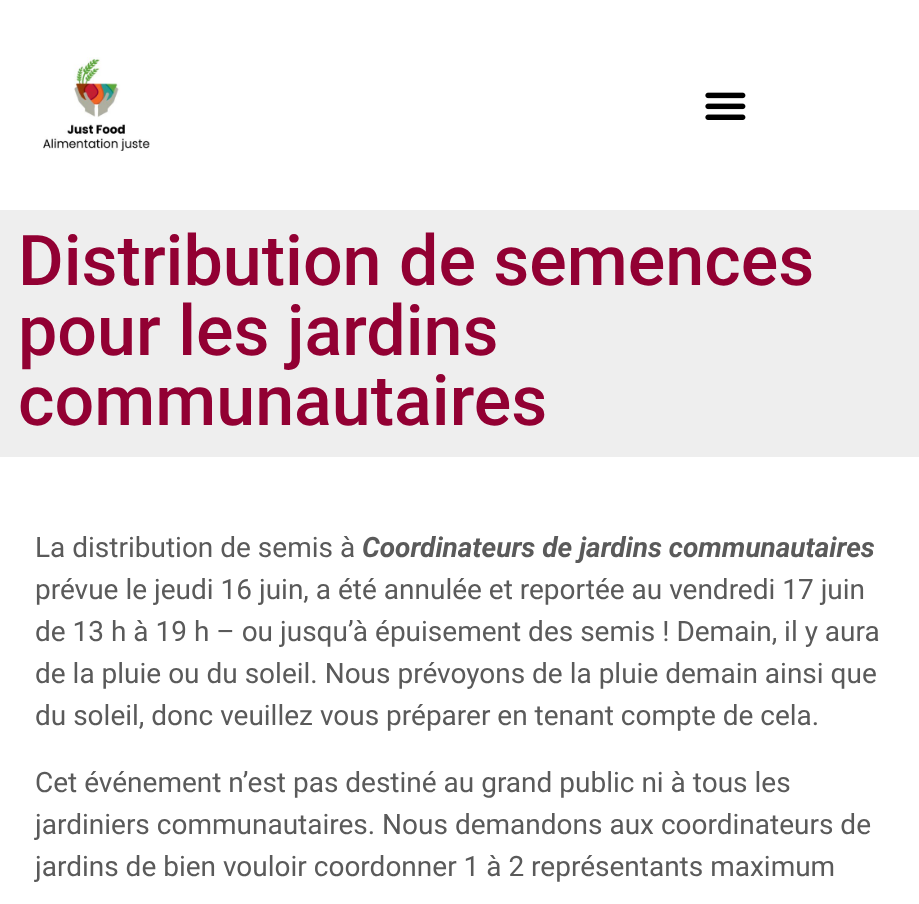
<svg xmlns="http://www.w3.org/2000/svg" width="919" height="904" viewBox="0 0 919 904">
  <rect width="100%" height="100%" fill="#fff"/>
  <image x="43" y="57" width="107" height="94" href="img/1.png"/>
  <image x="705" y="92" width="41" height="28" href="img/2.png"/>
  <path d="M0 210h919v247H0z" fill="#eee"/>
  <g font-family="Roboto" font-size="70" font-weight="500" fill="#920033">
    <text x="18" y="285">Distribution de semences</text>
    <text x="18" y="355">pour les jardins</text>
    <text x="18" y="425">communautaires</text>
  </g>
  <text x="35" y="557" font-family="Roboto" font-size="28" fill="#5a5a5a">La distribution de semis à</text>
  <text x="362" y="557" font-family="Roboto" font-size="28" font-weight="bold" font-style="italic" fill="#5a5a5a">Coordinateurs de jardins communautaires</text>
  <g font-family="Roboto" font-size="28" fill="#5a5a5a">
    <text x="35" y="599">prévue le jeudi 16 juin, a été annulée et reportée au vendredi 17 juin</text>
    <text x="35" y="641">de 13 h à 19 h – ou jusqu’à épuisement des semis ! Demain, il y aura</text>
    <text x="35" y="683">de la pluie ou du soleil. Nous prévoyons de la pluie demain ainsi que</text>
    <text x="35" y="725">du soleil, donc veuillez vous préparer en tenant compte de cela.</text>
    <text x="35" y="792">Cet événement n’est pas destiné au grand public ni à tous les</text>
    <text x="35" y="834">jardiniers communautaires. Nous demandons aux coordinateurs de</text>
    <text x="35" y="876">jardins de bien vouloir coordonner 1 à 2 représentants maximum</text>
  </g>
</svg>
